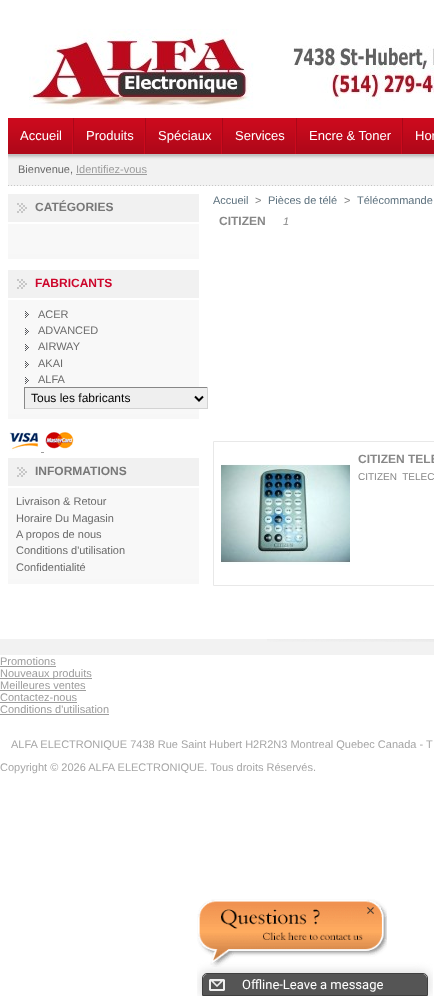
<svg xmlns="http://www.w3.org/2000/svg" width="434" height="996" viewBox="0 0 434 996">
  <defs>
    <clipPath id="clip1"><path d="M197 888h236v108H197z"/></clipPath>
  </defs>
  <rect width="100%" height="100%" fill="#fff"/>
  <image x="29" y="29" width="405" height="80" href="img/1.png"/>
  <image x="8" y="118" width="426" height="36" href="img/2.png"/>
  <image x="72" y="118" width="2" height="36" href="img/3.png"/>
  <image x="144" y="118" width="2" height="36" href="img/3.png"/>
  <image x="221" y="118" width="2" height="36" href="img/3.png"/>
  <image x="295" y="118" width="2" height="36" href="img/3.png"/>
  <image x="401" y="118" width="2" height="36" href="img/3.png"/>
  <image x="8" y="154" width="426" height="32" href="img/4.png"/>
  <path d="M76 174h71v1H76z" fill="#9d9d9d"/>
  <path d="M8 254h191v5H8z" fill="#f7f7f7"/>
  <image x="8" y="194" width="191" height="28" href="img/5.png"/>
  <path d="M8 224h191v30H8z" fill="#f8f8f8"/>
  <path d="M8 414h191v5H8z" fill="#f7f7f7"/>
  <image x="8" y="270" width="191" height="28" href="img/5.png"/>
  <path d="M8 300h191v114H8z" fill="#f8f8f8"/>
  <image x="25" y="311" width="4" height="7" href="img/6.png"/>
  <image x="25" y="328" width="4" height="7" href="img/6.png"/>
  <image x="25" y="344" width="4" height="7" href="img/6.png"/>
  <image x="25" y="361" width="4" height="7" href="img/6.png"/>
  <image x="25" y="377" width="4" height="7" href="img/6.png"/>
  <path d="M25 388h182v20H25z" fill="#efefef"/>
  <path d="M24 387h184v1H24z" fill="#878787"/>
  <path d="M207 387h1v22H207z" fill="#d3d3d3"/>
  <path d="M24 408h184v1H24z" fill="#d3d3d3"/>
  <path d="M24 387h1v22H24z" fill="#878787"/>
  <path d="M195 396.5L199 400.5L203 396.5" fill="none" stroke="#000" stroke-width="2"/>
  <image x="9" y="431" width="30" height="20" href="img/7.png"/>
  <image x="45" y="430" width="30" height="19" href="img/8.png"/>
  <path d="M41 452h3v1H41z" fill="#9d9d9d"/>
  <path d="M8 579h191v5H8z" fill="#f7f7f7"/>
  <image x="8" y="458" width="191" height="28" href="img/5.png"/>
  <path d="M8 488h191v91H8z" fill="#f8f8f8"/>
  <path d="M213.5 441.5h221v144H213.5z" fill="none" stroke="#e8e8e8"/>
  <image x="221" y="464" width="129" height="101" href="img/9.png"/>
  <path d="M0 639h434v16H0z" fill="#f2f2f2"/>
  <image x="267" y="639" width="167" height="3" href="img/10.png"/>
  <path d="M0 666h56v1H0z" fill="#9d9d9d"/>
  <path d="M0 678h92v1H0z" fill="#9d9d9d"/>
  <path d="M0 690h86v1H0z" fill="#9d9d9d"/>
  <path d="M0 702h77v1H0z" fill="#9d9d9d"/>
  <path d="M0 714h109v1H0z" fill="#9d9d9d"/>
  <image x="197" y="899" width="190" height="68" href="img/11.png"/>
  <image x="367" y="907" width="7" height="7" href="img/12.png"/>
  <g clip-path="url(#clip1)">
    <rect x="200" y="971" width="230" height="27" rx="7" fill="#dedede" filter="blur(5px)"/>
  </g>
  <path d="M207 973.5H423C425.5 973.5 427.5 975.5 427.5 978V995.5H202.5V978C202.5 975.5 204.5 973.5 207 973.5Z" fill="none" stroke="#404040"/>
  <path d="M208 974H422C425 974 427 976 427 979V995H203V979C203 976 205 974 208 974Z" fill="#555"/>
  <image x="209" y="979" width="16" height="12" href="img/13.png"/>
  <g font-family="Liberation Sans" font-size="13" fill="#fff">
    <text x="20" y="140">Accueil</text>
    <text x="86" y="140">Produits</text>
    <text x="158" y="140">Spéciaux</text>
    <text x="235" y="140">Services</text>
    <text x="309" y="140">Encre &amp; Toner</text>
    <text x="415" y="140">Hor</text>
  </g>
  <text x="18" y="173" font-family="Liberation Sans" font-size="11" fill="#6a6a6a">Bienvenue,</text>
  <text x="76" y="173" font-family="Liberation Sans" font-size="11" fill="#9d9d9d">Identifiez-vous</text>
  <text x="35" y="211" font-family="Liberation Sans" font-size="12" font-weight="bold" fill="#787878">CATÉGORIES</text>
  <text x="35" y="287" font-family="Liberation Sans" font-size="12" font-weight="bold" fill="#cd062b">FABRICANTS</text>
  <g font-family="Liberation Sans" font-size="11" fill="#6a6a6a">
    <text x="38" y="318">ACER</text>
    <text x="38" y="334">ADVANCED</text>
    <text x="38" y="350">AIRWAY</text>
    <text x="38" y="367">AKAI</text>
    <text x="38" y="383">ALFA</text>
  </g>
  <text x="31" y="402" font-family="Liberation Sans" font-size="12" fill="#000">Tous les fabricants</text>
  <text x="35" y="475" font-family="Liberation Sans" font-size="12" font-weight="bold" fill="#787878">INFORMATIONS</text>
  <g font-family="Liberation Sans" font-size="11" fill="#6a6a6a">
    <text x="16" y="505">Livraison &amp; Retour</text>
    <text x="16" y="522">Horaire Du Magasin</text>
    <text x="16" y="538">A propos de nous</text>
    <text x="16" y="554">Conditions d'utilisation</text>
    <text x="16" y="571">Confidentialité</text>
  </g>
  <text x="213" y="204" font-family="Liberation Sans" font-size="11" fill="#5d717e">Accueil</text>
  <text x="255" y="204" font-family="Liberation Sans" font-size="11" fill="#878787">&gt;</text>
  <text x="268" y="204" font-family="Liberation Sans" font-size="11" fill="#5d717e">Pièces de télé</text>
  <text x="344" y="204" font-family="Liberation Sans" font-size="11" fill="#878787">&gt;</text>
  <text x="357" y="204" font-family="Liberation Sans" font-size="11" fill="#5d717e">Télécommande</text>
  <text x="219" y="225" font-family="Liberation Sans" font-size="12" font-weight="bold" fill="#878787">CITIZEN</text>
  <text x="283" y="225" font-family="Liberation Sans" font-size="11" font-style="italic" fill="#878787">1</text>
  <text x="358" y="463" font-family="Liberation Sans" font-size="12" font-weight="bold" fill="#878787">CITIZEN TELE</text>
  <text x="358" y="480" font-family="Liberation Sans" font-size="10" fill="#878787" xml:space="preserve">CITIZEN  TELEC</text>
  <g font-family="Liberation Sans" font-size="11" fill="#9d9d9d">
    <text x="0" y="665">Promotions</text>
    <text x="0" y="677">Nouveaux produits</text>
    <text x="0" y="689">Meilleures ventes</text>
    <text x="0" y="701">Contactez-nous</text>
    <text x="0" y="713">Conditions d'utilisation</text>
  </g>
  <g font-family="Liberation Sans" font-size="11" fill="#a6a6a6">
    <text x="11" y="748">ALFA ELECTRONIQUE 7438 Rue Saint Hubert H2R2N3 Montreal Quebec Canada - T</text>
    <text x="0" y="771">Copyright © 2026 ALFA ELECTRONIQUE. Tous droits Réservés.</text>
  </g>
  <text x="242" y="989" font-family="Roboto" font-size="13" fill="#fff">Offline-Leave a message</text>
</svg>
